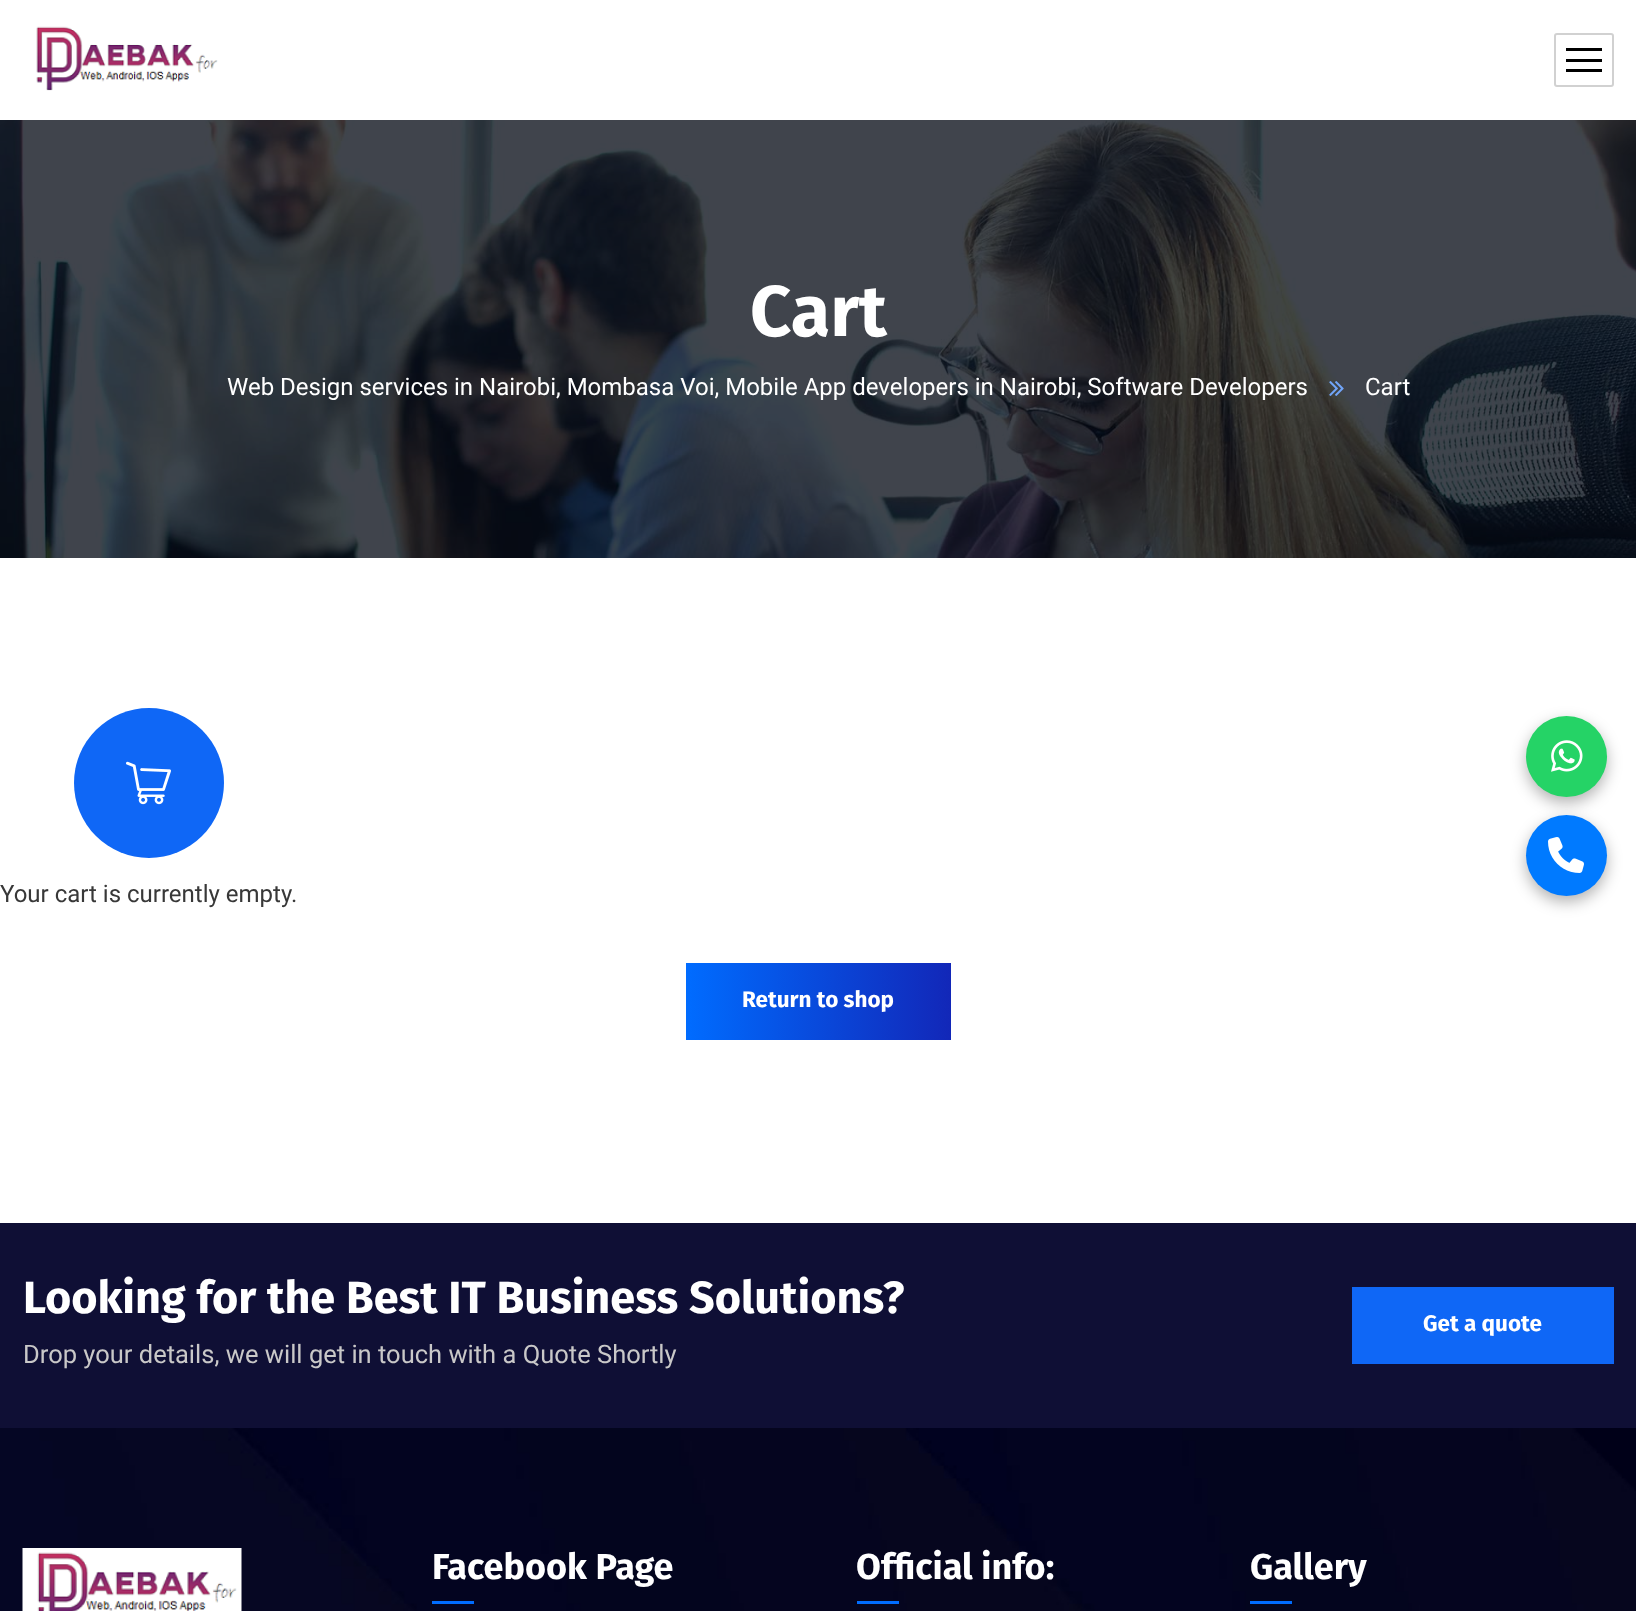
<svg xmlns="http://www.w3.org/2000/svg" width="1636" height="1611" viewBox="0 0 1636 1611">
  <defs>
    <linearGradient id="g1" gradientUnits="userSpaceOnUse" x1="686" y1="1001" x2="1217" y2="1001"><stop offset="0" stop-color="#006cff"/><stop offset="0.5" stop-color="#1227b8"/><stop offset="1" stop-color="#006cff"/></linearGradient>
  </defs>
  <rect width="100%" height="100%" fill="#fff"/>
  <image x="36" y="26" width="182" height="65" href="img/1.png"/>
  <rect x="1555" y="34" width="58" height="52" rx="2" fill="none" stroke="#d1d1d1" stroke-width="2"/>
  <path d="M1566 48h36v3H1566z" fill="#000"/>
  <path d="M1566 59h36v3H1566z" fill="#000"/>
  <path d="M1566 69h36v3H1566z" fill="#000"/>
  <image x="0" y="120" width="1636" height="438" href="img/2.png"/>
  <image x="1329" y="381" width="15" height="15" href="img/3.png"/>
  <circle cx="149" cy="783" r="75" fill="#0f67f6"/>
  <image x="126" y="761" width="45" height="44" href="img/4.png"/>
  <path d="M686 963h265v77H686z" fill="url(#g1)"/>
  <path d="M0 1223h1636v205H0z" fill="#0f0f35"/>
  <path d="M1352 1287h262v77H1352z" fill="#0f67f6"/>
  <image x="0" y="1428" width="1636" height="183" href="img/5.png"/>
  <image x="22" y="1548" width="220" height="63" href="img/6.png"/>
  <path d="M432 1601h42v3H432z" fill="#006cff"/>
  <path d="M857 1601h42v3H857z" fill="#006cff"/>
  <path d="M1250 1601h42v3H1250z" fill="#006cff"/>
  <rect x="1526" y="722" width="81" height="81" rx="40.5" fill="#0000004d" filter="blur(7.5px)"/>
  <circle cx="1566.5" cy="756.5" r="40.5" fill="#25d366"/>
  <image x="1551" y="740" width="32" height="32" href="img/7.png"/>
  <rect x="1526" y="821" width="81" height="81" rx="40.5" fill="#0000004d" filter="blur(7.5px)"/>
  <circle cx="1566.5" cy="855.5" r="40.5" fill="#007aff"/>
  <image x="1548" y="837" width="36" height="36" href="img/8.png"/>
  <text x="750" y="336" font-family="Fira Sans" font-size="72" font-weight="bold" fill="#fff">Cart</text>
  <g font-family="Roboto" font-size="24" fill="#fff">
    <text x="227" y="395">Web Design services in Nairobi, Mombasa Voi, Mobile App developers in Nairobi, Software Developers</text>
    <text x="1365" y="395">Cart</text>
  </g>
  <text x="0" y="902" font-family="Roboto" font-size="24" fill="#383838">Your cart is currently empty.</text>
  <text x="742" y="1007" font-family="Fira Sans" font-size="22.5" font-weight="bold" fill="#fff">Return to shop</text>
  <text x="23" y="1313" font-family="Fira Sans" font-size="45" font-weight="bold" fill="#fff">Looking for the Best IT Business Solutions?</text>
  <text x="23" y="1363" font-family="Roboto" font-size="25.5" fill="#c9c8c8">Drop your details, we will get in touch with a Quote Shortly</text>
  <text x="1423" y="1331" font-family="Fira Sans" font-size="22.5" font-weight="bold" fill="#fff">Get a quote</text>
  <g font-family="Fira Sans" font-size="36" font-weight="bold" fill="#fff">
    <text x="432" y="1579">Facebook Page</text>
    <text x="856" y="1579">Official info:</text>
    <text x="1250" y="1579">Gallery</text>
  </g>
</svg>
